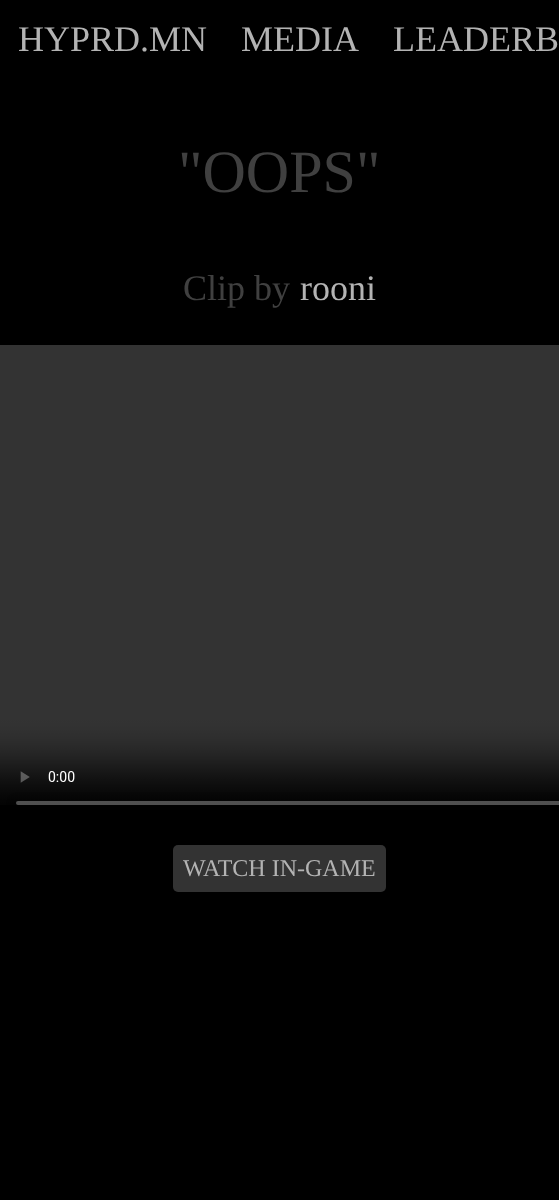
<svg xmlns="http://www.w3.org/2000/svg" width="559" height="1200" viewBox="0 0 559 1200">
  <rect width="100%" height="100%" fill="#000"/>
  <image x="0" y="345" width="559" height="460" href="img/1.png"/>
  <rect x="173" y="845" width="213" height="47" rx="5" fill="#333"/>
  <g font-family="Tinos" font-size="36" fill="#b3b3b3">
    <text x="18" y="51">HYPRD.MN</text>
    <text x="241" y="51">MEDIA</text>
    <text x="393" y="51">LEADERB</text>
  </g>
  <text x="178" y="192" font-family="Tinos" font-size="60" fill="#404040">"OOPS"</text>
  <text x="183" y="300" font-family="Tinos" font-size="36" fill="#404040">Clip by</text>
  <text x="300" y="300" font-family="Tinos" font-size="36" fill="#b3b3b3">rooni</text>
  <text x="183" y="876" font-family="Tinos" font-size="24" fill="#b3b3b3">WATCH IN-GAME</text>
</svg>
